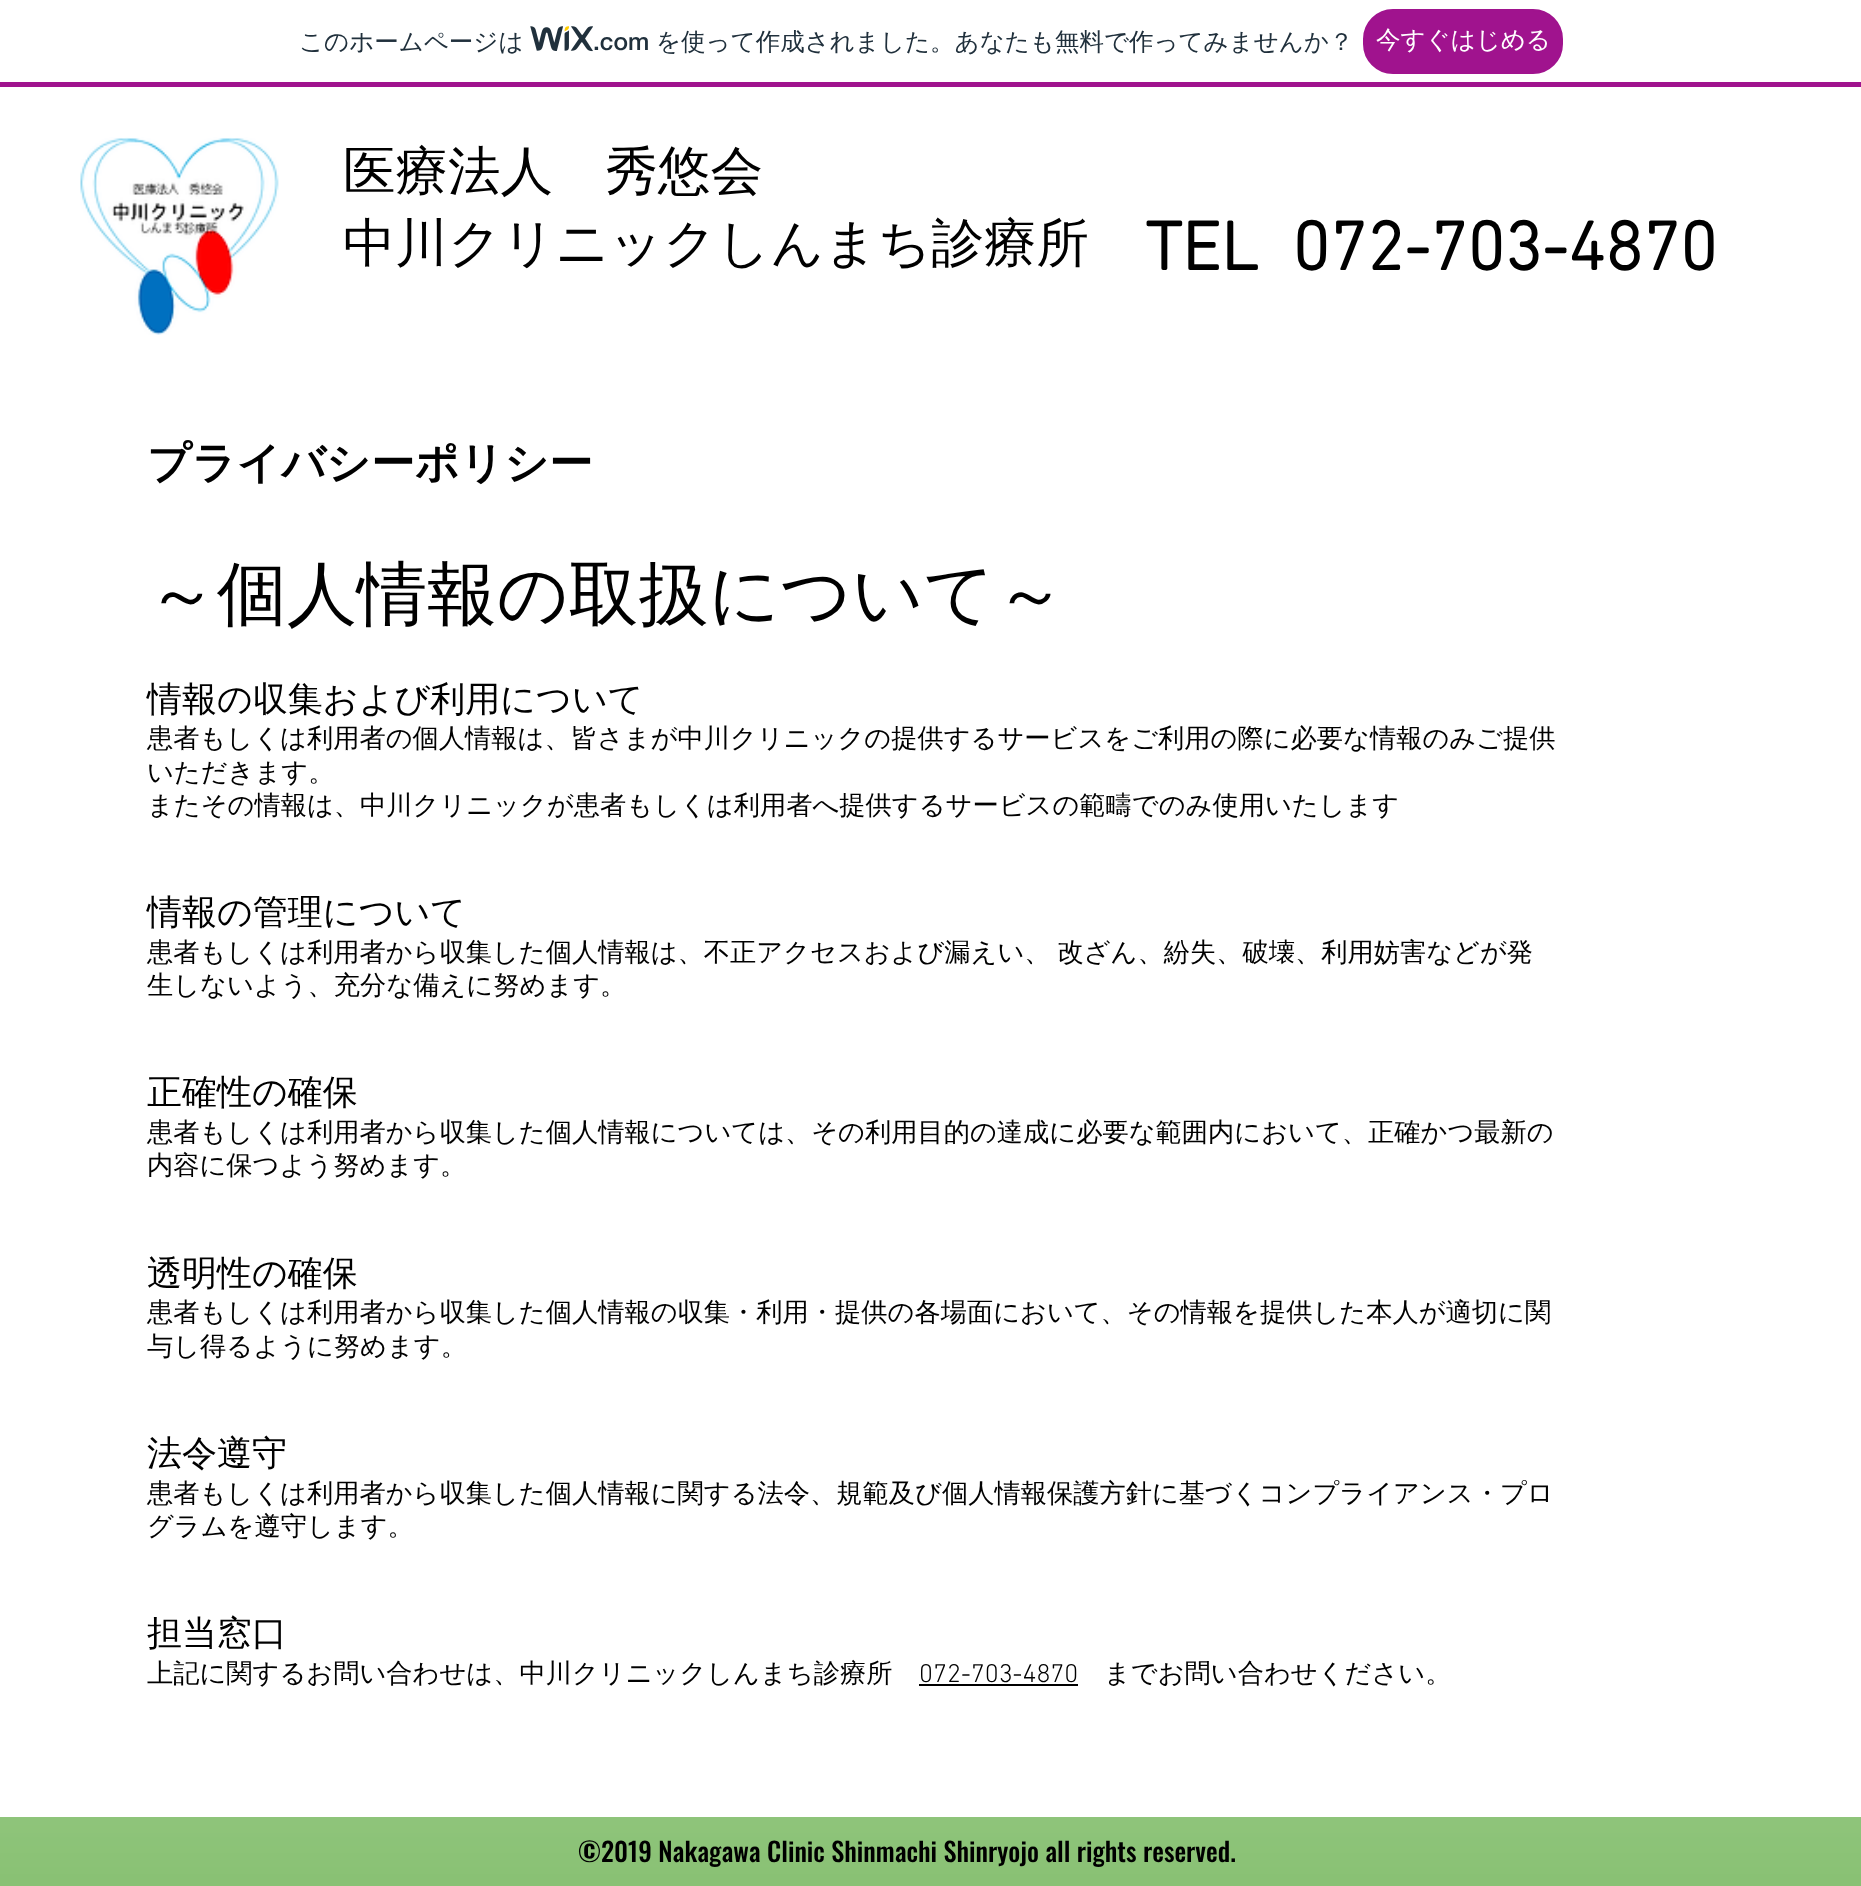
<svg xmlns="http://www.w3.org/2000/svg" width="1861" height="1886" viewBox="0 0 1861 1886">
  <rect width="100%" height="100%" fill="#fff"/>
  <path d="M0 82h1861v5H0z" fill="#a0138e"/>
  <image x="530" y="26" width="63" height="26" href="img/1.png"/>
  <rect x="1364" y="10" width="198" height="63" rx="29" fill="#a0138e" stroke="#a0138e" stroke-width="2"/>
  <image x="80" y="137" width="199" height="198" href="img/2.png"/>
  <path d="M919 1684h159v2H919z" fill="#000"/>
  <path d="M0 1817h1861v69H0z" fill="#68b04d"/>
  <image x="0" y="1817" width="1861" height="69" href="img/3.png"/>
  <text x="299" y="50" font-family="WenQuanYi Zen Hei" font-size="24.5" font-weight="500" fill="#20303c">このホームページは</text>
  <text x="593" y="50" font-family="'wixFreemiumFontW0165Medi'" font-size="24.5" font-weight="500" fill="#20303c">.com</text>
  <text x="656" y="50" font-family="WenQuanYi Zen Hei" font-size="24.5" font-weight="500" fill="#20303c">を使って作成されました。あなたも無料で作ってみませんか？</text>
  <text x="1376" y="48" font-family="WenQuanYi Zen Hei" font-size="24.5" font-weight="500" fill="#fff">今すぐはじめる</text>
  <g font-family="WenQuanYi Zen Hei" font-size="52.5" font-weight="500" fill="#000">
    <text x="343" y="189">医療法人　秀悠会</text>
    <text x="343" y="261">中川クリニックしんまち診療所</text>
  </g>
  <text x="1145" y="270" font-family="'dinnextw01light'" font-size="70" font-weight="bold" fill="#000" xml:space="preserve">TEL  072-703-4870</text>
  <text x="147" y="478" font-family="WenQuanYi Zen Hei" font-size="43.75" font-weight="bold" fill="#000">プライバシーポリシー</text>
  <text x="147" y="618" font-family="WenQuanYi Zen Hei" font-size="70" font-weight="500" fill="#000">～個人情報の取扱について～</text>
  <text x="147" y="711" font-family="WenQuanYi Zen Hei" font-size="35" font-weight="500" fill="#000">情報の収集および利用について</text>
  <g font-family="WenQuanYi Zen Hei" font-size="26.25" font-weight="500" fill="#000">
    <text x="147" y="747">患者もしくは利用者の個人情報は、皆さまが中川クリニックの提供するサービスをご利用の際に必要な情報のみご提供</text>
    <text x="147" y="781">いただきます。</text>
    <text x="147" y="814">またその情報は、中川クリニックが患者もしくは利用者へ提供するサービスの範疇でのみ使用いたします</text>
  </g>
  <text x="147" y="924" font-family="WenQuanYi Zen Hei" font-size="35" font-weight="500" fill="#000">情報の管理について</text>
  <g font-family="WenQuanYi Zen Hei" font-size="26.25" font-weight="500" fill="#000">
    <text x="147" y="961" word-spacing="-1">患者もしくは利用者から収集した個人情報は、不正アクセスおよび漏えい、 改ざん、紛失、破壊、利用妨害などが発</text>
    <text x="147" y="994">生しないよう、充分な備えに努めます。</text>
  </g>
  <text x="147" y="1104" font-family="WenQuanYi Zen Hei" font-size="35" font-weight="500" fill="#000">正確性の確保</text>
  <g font-family="WenQuanYi Zen Hei" font-size="26.25" font-weight="500" fill="#000">
    <text x="147" y="1141">患者もしくは利用者から収集した個人情報については、その利用目的の達成に必要な範囲内において、正確かつ最新の</text>
    <text x="147" y="1174">内容に保つよう努めます。</text>
  </g>
  <text x="147" y="1285" font-family="WenQuanYi Zen Hei" font-size="35" font-weight="500" fill="#000">透明性の確保</text>
  <g font-family="WenQuanYi Zen Hei" font-size="26.25" font-weight="500" fill="#000">
    <text x="147" y="1321">患者もしくは利用者から収集した個人情報の収集・利用・提供の各場面において、その情報を提供した本人が適切に関</text>
    <text x="147" y="1355">与し得るように努めます。</text>
  </g>
  <text x="147" y="1465" font-family="WenQuanYi Zen Hei" font-size="35" font-weight="500" fill="#000">法令遵守</text>
  <g font-family="WenQuanYi Zen Hei" font-size="26.25" font-weight="500" fill="#000">
    <text x="147" y="1502">患者もしくは利用者から収集した個人情報に関する法令、規範及び個人情報保護方針に基づくコンプライアンス・プロ</text>
    <text x="147" y="1535">グラムを遵守します。</text>
  </g>
  <text x="147" y="1645" font-family="WenQuanYi Zen Hei" font-size="35" font-weight="500" fill="#000">担当窓口</text>
  <text x="147" y="1682" font-family="WenQuanYi Zen Hei" font-size="26.25" font-weight="500" fill="#000">上記に関するお問い合わせは、中川クリニックしんまち診療所</text>
  <text x="919" y="1682" font-family="'dinnextw01light'" font-size="26.25" font-weight="300" fill="#000">072-703-4870</text>
  <text x="1104" y="1682" font-family="WenQuanYi Zen Hei" font-size="26.25" font-weight="500" fill="#000">までお問い合わせください。</text>
  <text x="578" y="1862" font-family="Oswald" font-size="26.25" font-weight="500" fill="#000">©2019 Nakagawa Clinic Shinmachi Shinryojo all rights reserved.</text>
</svg>
